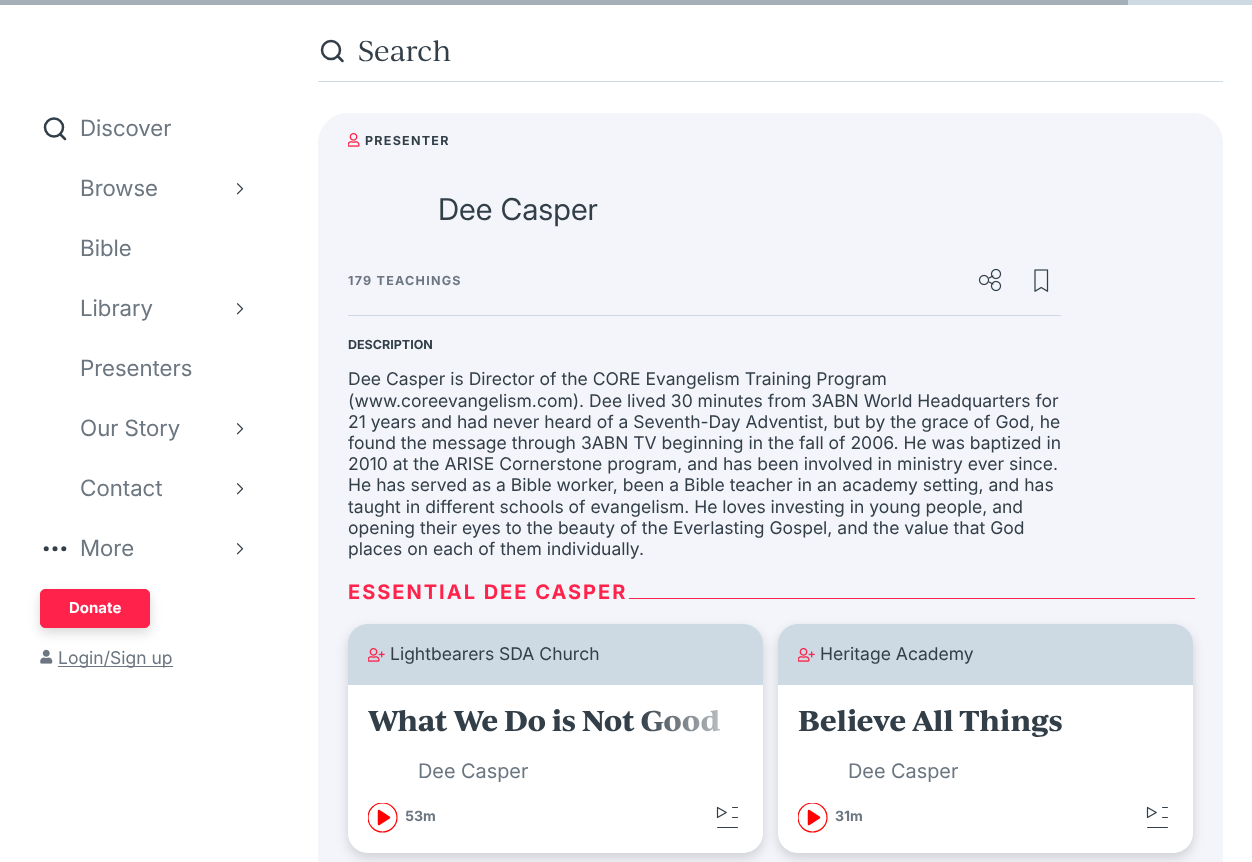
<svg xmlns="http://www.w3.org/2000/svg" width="1252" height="862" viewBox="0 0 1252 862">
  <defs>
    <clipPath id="clip1"><path d="M368 803h30v30H368z"/></clipPath>
    <clipPath id="clip2"><path d="M798 803h30v30H798z"/></clipPath>
    <linearGradient id="g1" gradientUnits="userSpaceOnUse" x1="763" y1="739" x2="638" y2="739"><stop offset="0" stop-color="#fff"/><stop offset="1" stop-color="#fff" stop-opacity="0"/></linearGradient>
  </defs>
  <rect width="100%" height="100%" fill="#fff"/>
  <path d="M1128 0h124v5H1128z" fill="#cdd9e3"/>
  <path d="M0 0h1128v5H0z" fill="#a5afb8"/>
  <circle cx="54" cy="127.5" r="9" fill="none" stroke="#323e48" stroke-width="2.5"/>
  <path d="M60 134L65 139" fill="none" stroke="#323e48" stroke-width="2.5" stroke-linecap="round"/>
  <image x="236" y="183" width="8" height="12" href="img/1.png"/>
  <image x="236" y="303" width="8" height="12" href="img/1.png"/>
  <image x="236" y="423" width="8" height="12" href="img/1.png"/>
  <image x="236" y="483" width="8" height="12" href="img/1.png"/>
  <circle cx="46.2" cy="548.8" r="2.5" fill="#323e48"/>
  <circle cx="55" cy="548.8" r="2.5" fill="#323e48"/>
  <circle cx="63.8" cy="548.8" r="2.5" fill="#323e48"/>
  <image x="236" y="543" width="8" height="12" href="img/1.png"/>
  <rect x="40" y="594" width="110" height="39" rx="5" fill="#00000026" filter="blur(6px)"/>
  <rect x="40.5" y="589.5" width="109" height="38" rx="4.5" fill="#ff224a" stroke="#ff224a"/>
  <image x="40" y="649" width="13" height="15" href="img/2.png"/>
  <path d="M58 666h115v1H58z" fill="#6b7680"/>
  <path d="M318 81h905v1H318z" fill="#cdd9e3"/>
  <circle cx="331" cy="50" r="9" fill="none" stroke="#323e48" stroke-width="2.5"/>
  <path d="M337.5 56L342.5 61" fill="none" stroke="#323e48" stroke-width="2.5" stroke-linecap="round"/>
  <path d="M348 113H1193C1209.5 113 1223 126.5 1223 143V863H318V143C318 126.5 331.5 113 348 113Z" fill="#f3f5fa"/>
  <image x="348" y="133" width="12" height="14" href="img/3.png"/>
  <image x="978" y="268" width="24" height="24" href="img/4.png"/>
  <image x="1034" y="269" width="15" height="23" href="img/5.png"/>
  <path d="M348 315h713v1H348z" fill="#cdd9e3"/>
  <path d="M629 598h566v1H629z" fill="#ff224a"/>
  <rect x="348" y="629" width="415" height="229" rx="20" fill="#00000026" filter="blur(6px)"/>
  <path d="M368 624H743C754 624 763 633 763 644V685H348V644C348 633 357 624 368 624Z" fill="#cdd9e3"/>
  <image x="368" y="648" width="17" height="14" href="img/6.png"/>
  <path d="M348 685H763V833C763 844 754 853 743 853H368C357 853 348 844 348 833Z" fill="#fff"/>
  <path d="M379 824V811L389 817.5Z" fill="#f00" stroke="#f00" stroke-width="2.5" stroke-linejoin="round"/>
  <g clip-path="url(#clip1)">
    <circle cx="382.5" cy="817.5" r="14.5" fill="none" stroke="#f00" stroke-width="1.2"/>
  </g>
  <image x="716" y="806" width="22" height="22" href="img/7.png"/>
  <rect x="778" y="629" width="415" height="229" rx="20" fill="#00000026" filter="blur(6px)"/>
  <path d="M798 624H1173C1184 624 1193 633 1193 644V685H778V644C778 633 787 624 798 624Z" fill="#cdd9e3"/>
  <image x="798" y="648" width="17" height="14" href="img/6.png"/>
  <path d="M778 685H1193V833C1193 844 1184 853 1173 853H798C787 853 778 844 778 833Z" fill="#fff"/>
  <path d="M809 824V811L819 817.5Z" fill="#f00" stroke="#f00" stroke-width="2.5" stroke-linejoin="round"/>
  <g clip-path="url(#clip2)">
    <circle cx="812.5" cy="817.5" r="14.5" fill="none" stroke="#f00" stroke-width="1.2"/>
  </g>
  <image x="1146" y="806" width="22" height="22" href="img/7.png"/>
  <g font-family="'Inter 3'" font-size="22.5" fill="#6b7680">
    <text x="80" y="136">Discover</text>
    <text x="80" y="196">Browse</text>
    <text x="80" y="256">Bible</text>
    <text x="80" y="316">Library</text>
    <text x="80" y="376">Presenters</text>
    <text x="80" y="436">Our Story</text>
    <text x="80" y="496">Contact</text>
    <text x="80" y="556">More</text>
  </g>
  <text x="69" y="613" font-family="Inter" font-size="15" font-weight="bold" fill="#fff">Donate</text>
  <text x="58" y="664" font-family="'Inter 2'" font-size="17.5" fill="#6b7680">Login/Sign up</text>
  <text x="358" y="61" font-family="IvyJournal" font-size="27.5" fill="#323e48">Search</text>
  <text x="365" y="145" font-family="Inter" font-size="12.5" font-weight="bold" letter-spacing="1.25" fill="#323e48">PRESENTER</text>
  <text x="438" y="220" font-family="Inter" font-size="30" fill="#323e48">Dee Casper</text>
  <text x="348" y="285" font-family="Inter" font-size="12.5" font-weight="bold" letter-spacing="1.25" fill="#6b7680">179 TEACHINGS</text>
  <text x="348" y="349" font-family="Inter" font-size="12.5" font-weight="bold" fill="#323e48">DESCRIPTION</text>
  <g font-family="'Inter 2'" font-size="17.5" fill="#323e48">
    <text x="348" y="385">Dee Casper is Director of the CORE Evangelism Training Program</text>
    <text x="348" y="407">(www.coreevangelism.com). Dee lived 30 minutes from 3ABN World Headquarters for</text>
    <text x="348" y="428">21 years and had never heard of a Seventh-Day Adventist, but by the grace of God, he</text>
    <text x="348" y="449">found the message through 3ABN TV beginning in the fall of 2006. He was baptized in</text>
    <text x="348" y="470">2010 at the ARISE Cornerstone program, and has been involved in ministry ever since.</text>
    <text x="348" y="491">He has served as a Bible worker, been a Bible teacher in an academy setting, and has</text>
    <text x="348" y="513">taught in different schools of evangelism. He loves investing in young people, and</text>
    <text x="348" y="534">opening their eyes to the beauty of the Everlasting Gospel, and the value that God</text>
    <text x="348" y="555">places on each of them individually.</text>
  </g>
  <text x="348" y="599" font-family="Inter" font-size="20" font-weight="bold" letter-spacing="2" fill="#ff224a">ESSENTIAL DEE CASPER</text>
  <text x="390" y="660" font-family="'Inter 2'" font-size="17.5" fill="#323e48">Lightbearers SDA Church</text>
  <text x="368" y="731" font-family="IvyJournal" font-size="27.5" font-weight="bold" fill="#323e48">What We Do is Not Good</text>
  <path d="M641 710h78v22H641z" fill="url(#g1)"/>
  <text x="418" y="778" font-family="'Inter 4'" font-size="20" fill="#6b7680">Dee Casper</text>
  <text x="405" y="821" font-family="Inter" font-size="14" font-weight="bold" fill="#6b7680">53m</text>
  <text x="820" y="660" font-family="'Inter 2'" font-size="17.5" fill="#323e48">Heritage Academy</text>
  <text x="798" y="731" font-family="IvyJournal" font-size="27.5" font-weight="bold" fill="#323e48">Believe All Things</text>
  <text x="848" y="778" font-family="'Inter 4'" font-size="20" fill="#6b7680">Dee Casper</text>
  <text x="835" y="821" font-family="Inter" font-size="14" font-weight="bold" fill="#6b7680">31m</text>
</svg>
